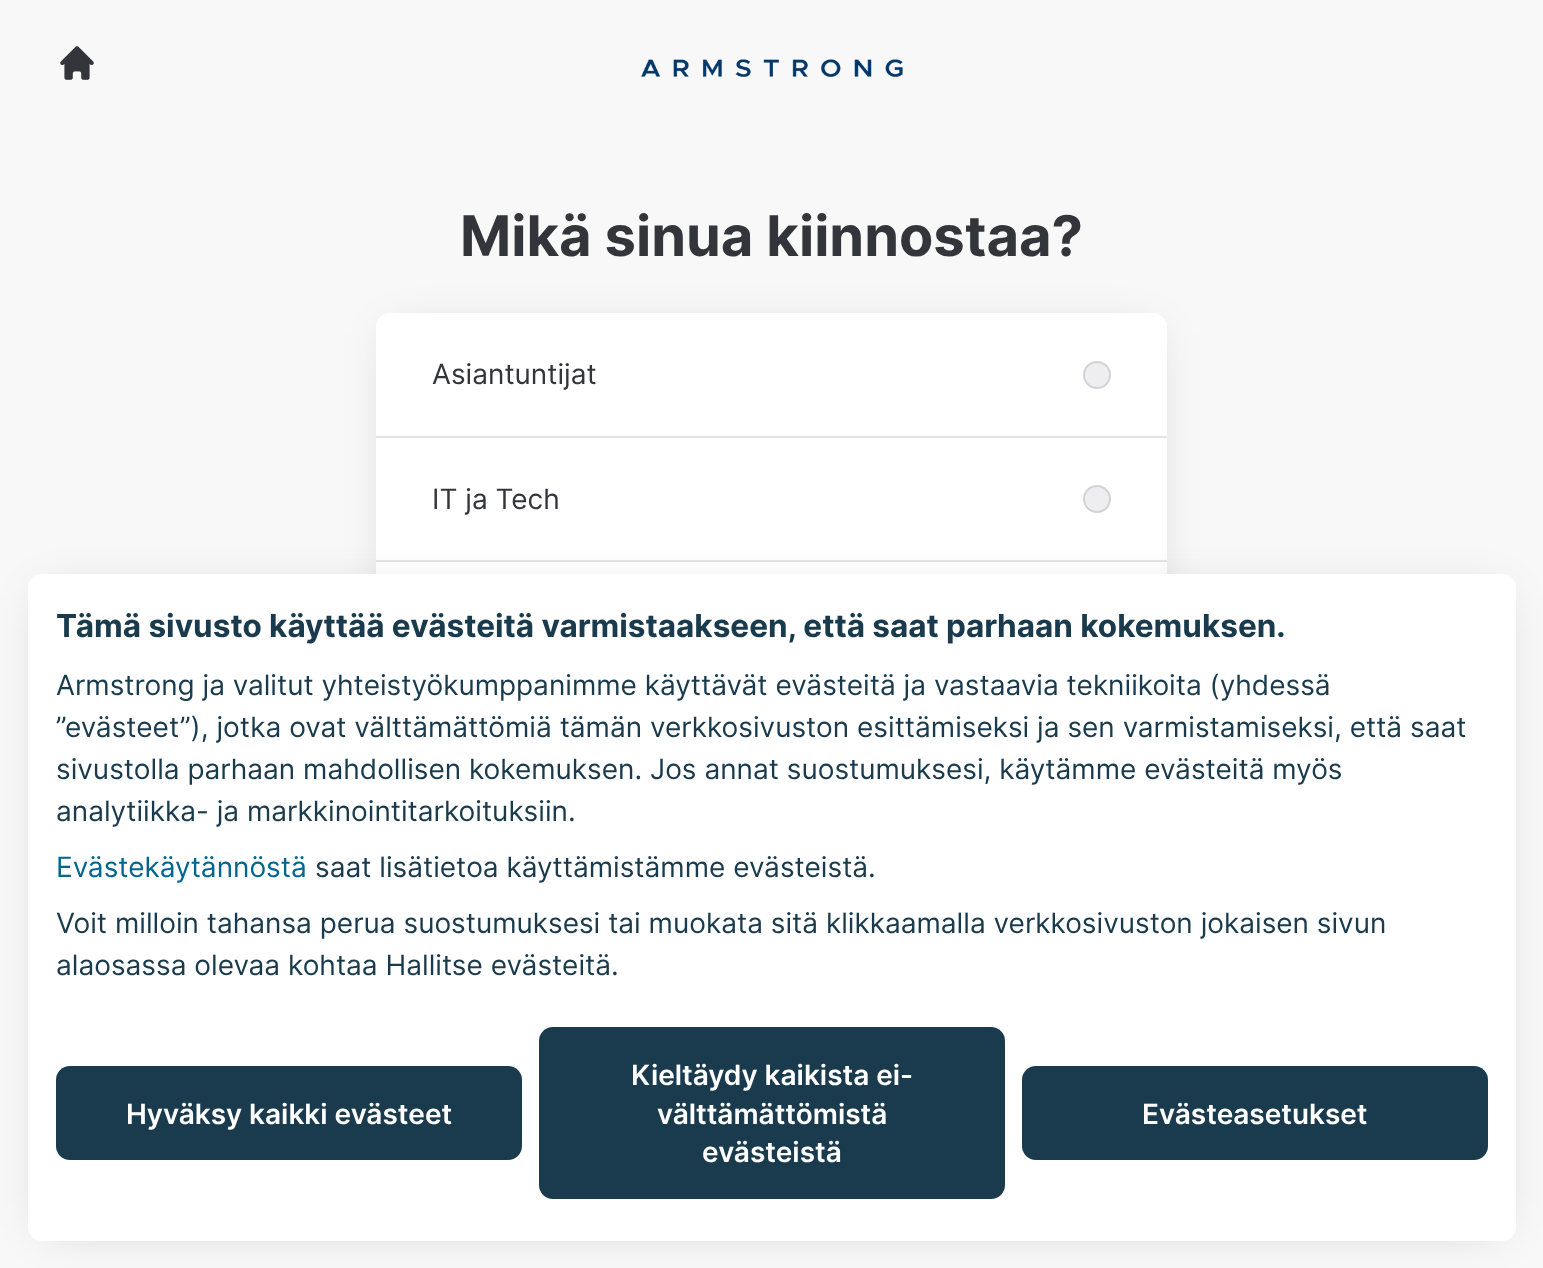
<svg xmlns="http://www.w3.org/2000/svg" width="1543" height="1268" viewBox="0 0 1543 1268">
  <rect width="100%" height="100%" fill="#f8f8f9"/>
  <image x="60" y="46" width="34" height="34" href="img/1.png"/>
  <image x="641" y="59" width="262" height="18" href="img/2.png"/>
  <path d="M394 334h756v525H394z" fill="#0000002e" filter="blur(23.5px)"/>
  <rect x="376" y="313" width="791" height="560" rx="14" fill="#fff"/>
  <path d="M376 436h791v2H376z" fill="#e3e3e3"/>
  <circle cx="1097" cy="375" r="14" fill="#eeeef0"/>
  <circle cx="1097" cy="375" r="13" fill="none" stroke="#0000001c" stroke-width="2"/>
  <path d="M376 560h791v2H376z" fill="#e3e3e3"/>
  <circle cx="1097" cy="499" r="14" fill="#eeeef0"/>
  <circle cx="1097" cy="499" r="13" fill="none" stroke="#0000001c" stroke-width="2"/>
  <path d="M46 595h1452v632H46z" fill="#0000002e" filter="blur(23.5px)"/>
  <rect x="28" y="574" width="1488" height="667" rx="14" fill="#fff"/>
  <rect x="56" y="1066" width="466" height="94" rx="14" fill="#193b4d"/>
  <rect x="539" y="1027" width="466" height="172" rx="14" fill="#193b4d"/>
  <rect x="1022" y="1066" width="466" height="94" rx="14" fill="#193b4d"/>
  <text x="460" y="256" font-family="Inter" font-size="56" font-weight="bold" fill="#34353a">Mikä sinua kiinnostaa?</text>
  <g font-family="Inter" font-size="28" fill="#34353a">
    <text x="432" y="384">Asiantuntijat</text>
    <text x="432" y="509">IT ja Tech</text>
  </g>
  <text x="56" y="637" font-family="Inter" font-size="31.5" font-weight="bold" fill="#193b4d">Tämä sivusto käyttää evästeitä varmistaakseen, että saat parhaan kokemuksen.</text>
  <g font-family="Inter" font-size="28" fill="#193b4d">
    <text x="56" y="695">Armstrong ja valitut yhteistyökumppanimme käyttävät evästeitä ja vastaavia tekniikoita (yhdessä</text>
    <text x="56" y="737">”evästeet”), jotka ovat välttämättömiä tämän verkkosivuston esittämiseksi ja sen varmistamiseksi, että saat</text>
    <text x="56" y="779">sivustolla parhaan mahdollisen kokemuksen. Jos annat suostumuksesi, käytämme evästeitä myös</text>
    <text x="56" y="821">analytiikka- ja markkinointitarkoituksiin.</text>
  </g>
  <text x="56" y="877" font-family="Inter" font-size="28" fill="#006691">Evästekäytännöstä</text>
  <g font-family="Inter" font-size="28" fill="#193b4d">
    <text x="315" y="877">saat lisätietoa käyttämistämme evästeistä.</text>
    <text x="56" y="933">Voit milloin tahansa perua suostumuksesi tai muokata sitä klikkaamalla verkkosivuston jokaisen sivun</text>
    <text x="56" y="975">alaosassa olevaa kohtaa Hallitse evästeitä.</text>
  </g>
  <g font-family="Inter" font-size="28" font-weight="600" fill="#fff">
    <text x="126" y="1124">Hyväksy kaikki evästeet</text>
    <text x="631" y="1085">Kieltäydy kaikista ei-</text>
    <text x="657" y="1124">välttämättömistä</text>
    <text x="702" y="1162">evästeistä</text>
    <text x="1142" y="1124">Evästeasetukset</text>
  </g>
</svg>
